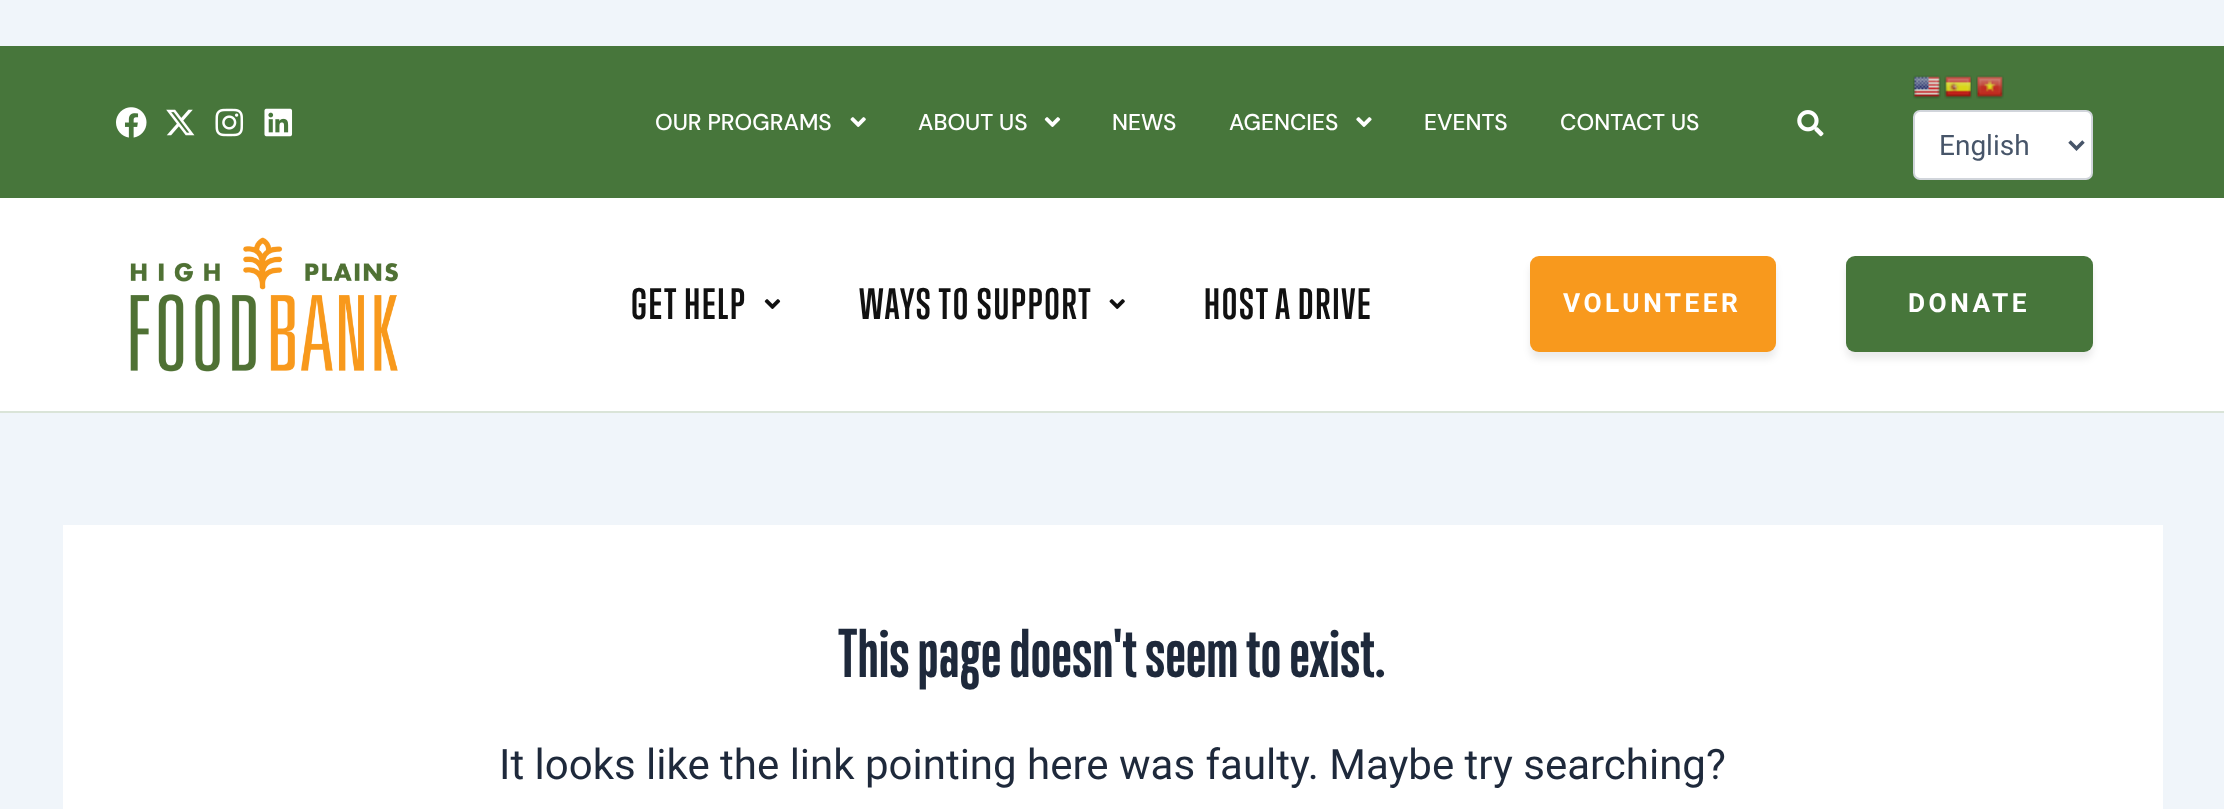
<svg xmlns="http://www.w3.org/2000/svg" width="2224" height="809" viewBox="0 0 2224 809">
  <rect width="100%" height="100%" fill="#f0f5fa"/>
  <path d="M0 46h2224v152H0z" fill="#47763b"/>
  <image x="116" y="107" width="31" height="31" href="img/1.png"/>
  <image x="166" y="109" width="29" height="27" href="img/2.png"/>
  <image x="215" y="108" width="29" height="29" href="img/3.png"/>
  <image x="264" y="108" width="29" height="29" href="img/4.png"/>
  <image x="850" y="117" width="16" height="10" href="img/5.png"/>
  <image x="1044" y="117" width="17" height="10" href="img/6.png"/>
  <image x="1356" y="117" width="16" height="10" href="img/7.png"/>
  <image x="1797" y="110" width="27" height="27" href="img/8.png"/>
  <image x="1913" y="75" width="28" height="24" href="img/9.png"/>
  <image x="1944" y="75" width="28" height="24" href="img/10.png"/>
  <image x="1976" y="75" width="28" height="24" href="img/11.png"/>
  <rect x="1914" y="111" width="178" height="68" rx="6" fill="#fff" stroke="#d1d5db" stroke-width="2"/>
  <path d="M2069.5 141.5L2076.5 148.5L2083.5 141.5" fill="none" stroke="#475569" stroke-width="3.5"/>
  <path d="M0 198h2224v213H0z" fill="#fff"/>
  <path d="M0 411h2224v2H0z" fill="#dae4d8"/>
  <image x="130" y="237" width="268" height="135" href="img/12.png"/>
  <image x="764" y="299" width="17" height="10" href="img/13.png"/>
  <image x="1109" y="299" width="16" height="10" href="img/14.png"/>
  <rect x="1530" y="263" width="246" height="96" rx="9" fill="#00000014" filter="blur(3.5px)"/>
  <rect x="1530" y="256" width="246" height="96" rx="9" fill="#f8991d"/>
  <rect x="1846" y="263" width="247" height="96" rx="9" fill="#00000014" filter="blur(3.5px)"/>
  <rect x="1846" y="256" width="247" height="96" rx="9" fill="#47763b"/>
  <path d="M63 525h2100v284H63z" fill="#fff"/>
  <g font-family="DM Sans" font-size="22.75" font-weight="500" fill="#fff">
    <text x="655" y="130">OUR PROGRAMS</text>
    <text x="918" y="130">ABOUT US</text>
    <text x="1112" y="130">NEWS</text>
    <text x="1229" y="130">AGENCIES</text>
    <text x="1424" y="130">EVENTS</text>
    <text x="1560" y="130">CONTACT US</text>
  </g>
  <text x="1939" y="155" font-family="Roboto" font-size="28" fill="#475569">English</text>
  <g font-family="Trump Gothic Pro" font-size="40.25" font-weight="bold" letter-spacing="1.75" fill="#111">
    <text x="631" y="319">GET HELP</text>
    <text x="859" y="319">WAYS TO SUPPORT</text>
    <text x="1204" y="319">HOST A DRIVE</text>
  </g>
  <g font-family="Roboto" font-size="26.25" font-weight="bold" letter-spacing="3.5" fill="#fff">
    <text x="1563" y="312">VOLUNTEER</text>
    <text x="1908" y="312">DONATE</text>
  </g>
  <text x="838" y="677" font-family="Trump Gothic Pro" font-size="63" font-weight="bold" fill="#1e293b">This page doesn't seem to exist.</text>
  <text x="499" y="779" font-family="Roboto" font-size="42" fill="#1e293b">It looks like the link pointing here was faulty. Maybe try searching?</text>
</svg>
